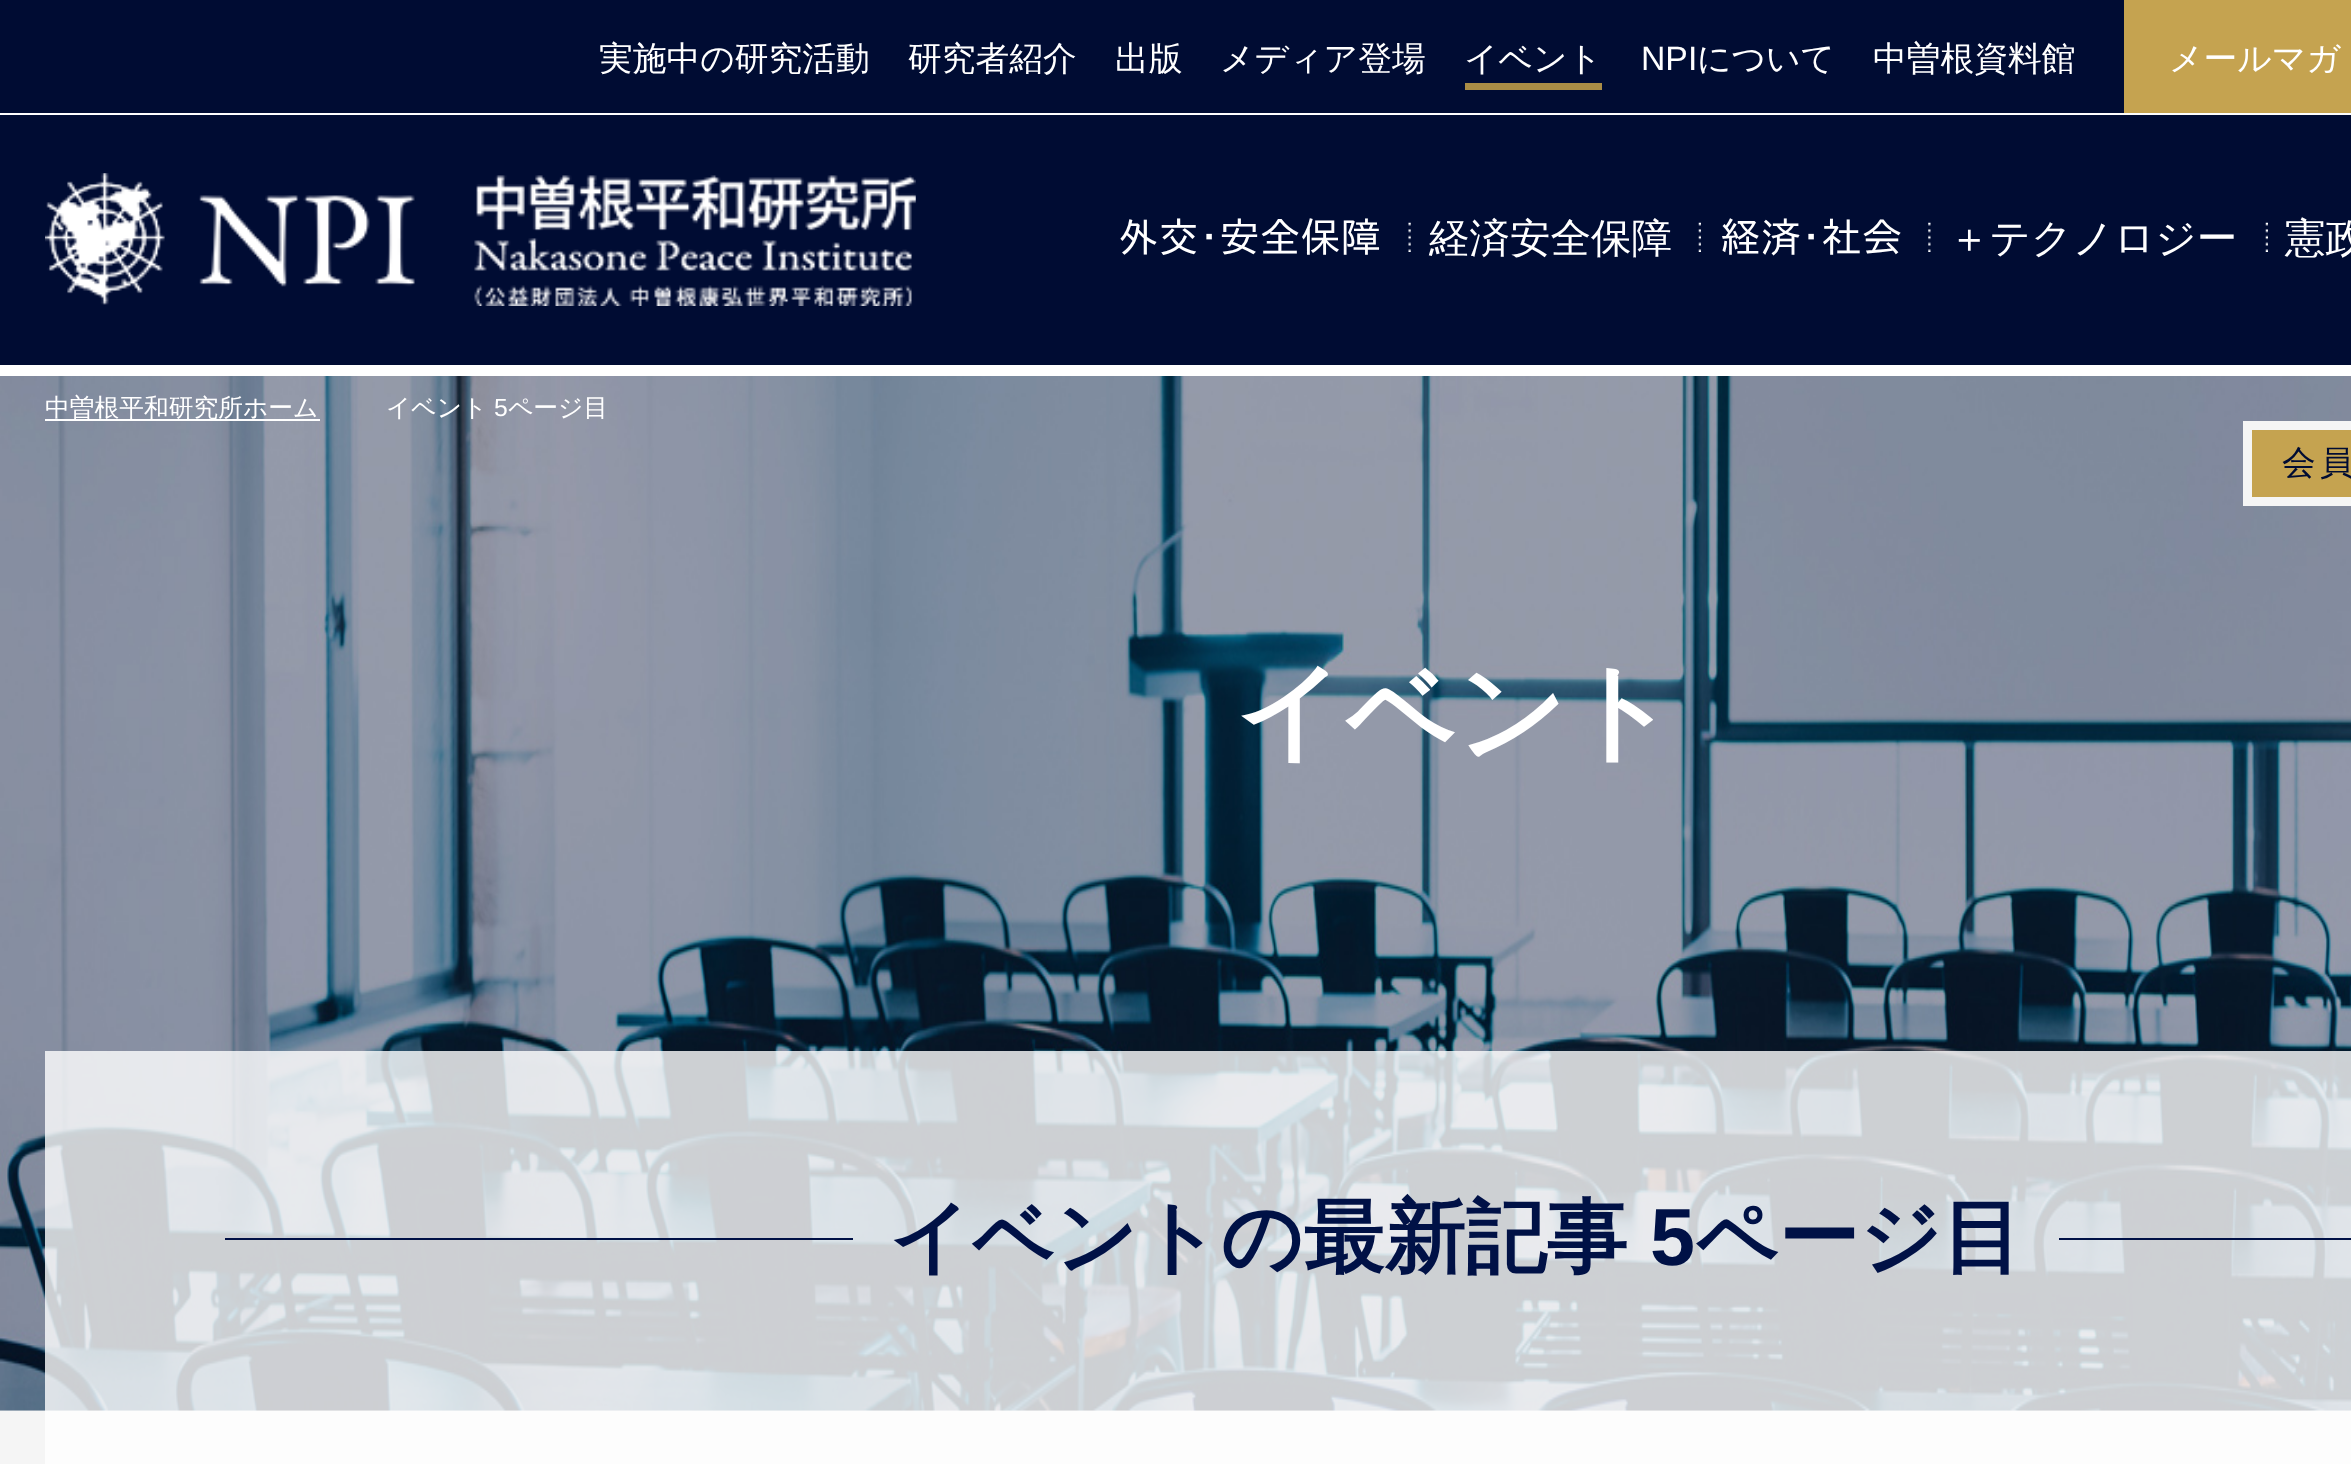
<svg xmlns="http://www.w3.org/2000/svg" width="2351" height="1464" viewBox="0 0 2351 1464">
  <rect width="100%" height="100%" fill="#f5f5f5"/>
  <path d="M0 0h2351v365H0z" fill="#000c33"/>
  <path d="M0 365h2351v11H0z" fill="#fff"/>
  <path d="M0 113h2351v2H0z" fill="#fff"/>
  <path d="M1465 83h137v7H1465z" fill="#aa8d46"/>
  <path d="M2124 0h227v113H2124z" fill="#c5a350"/>
  <image x="45" y="173" width="871" height="133" href="img/1.png"/>
  <image x="1408" y="222" width="3" height="30" href="img/2.png"/>
  <image x="1698" y="222" width="3" height="30" href="img/3.png"/>
  <image x="1928" y="222" width="3" height="30" href="img/4.png"/>
  <image x="2265" y="222" width="3" height="30" href="img/3.png"/>
  <image x="0" y="376" width="2351" height="1035" href="img/5.png"/>
  <path d="M2247.5 425.5h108v76H2247.5z" fill="#c5a350" stroke="#f5f5f5" stroke-width="9"/>
  <path d="M45 419h275v2H45z" fill="#fff"/>
  <path d="M45 1051h2306v413H45z" fill="#ffffffcc"/>
  <path d="M225 1238h628v2H225z" fill="#001146"/>
  <path d="M2059 1238h292v2H2059z" fill="#001146"/>
  <g font-family="WenQuanYi Zen Hei" font-size="33.75" font-weight="500" fill="#fff">
    <text x="599" y="70">実施中の研究活動</text>
    <text x="908" y="70">研究者紹介</text>
    <text x="1115" y="70">出版</text>
    <text x="1220" y="70">メディア登場</text>
    <text x="1464" y="70">イベント</text>
  </g>
  <text x="1641" y="70" font-family="Liberation Sans" font-size="33.75" fill="#fff">NPI</text>
  <g font-family="WenQuanYi Zen Hei" font-size="33.75" font-weight="500" fill="#fff">
    <text x="1697" y="70">について</text>
    <text x="1873" y="70">中曽根資料館</text>
    <text x="2169" y="70">メールマガ</text>
  </g>
  <text x="1118" y="252" font-family="IPAPGothic" font-size="40.5" fill="#fff">外交･安全保障</text>
  <text x="1429" y="252" font-family="WenQuanYi Zen Hei" font-size="40.5" font-weight="500" fill="#fff">経済安全保障</text>
  <text x="1720" y="252" font-family="IPAPGothic" font-size="40.5" fill="#fff">経済･社会</text>
  <g font-family="WenQuanYi Zen Hei" font-size="40.5" font-weight="500" fill="#fff">
    <text x="1949" y="252">＋テクノロジー</text>
    <text x="2285" y="252">憲政</text>
  </g>
  <text x="2282" y="474" font-family="WenQuanYi Zen Hei" font-size="33.75" font-weight="500" letter-spacing="4" fill="#000c33">会員</text>
  <g font-family="WenQuanYi Zen Hei" font-size="24.75" font-weight="500" fill="#fff">
    <text x="45" y="416">中曽根平和研究所ホーム</text>
    <text x="386" y="416">イベント</text>
  </g>
  <text x="494" y="416" font-family="Liberation Sans" font-size="24.75" fill="#fff">5</text>
  <text x="508" y="416" font-family="WenQuanYi Zen Hei" font-size="24.75" font-weight="500" fill="#fff">ページ目</text>
  <text x="1235" y="749" font-family="WenQuanYi Zen Hei" font-size="108" font-weight="bold" fill="#fff">イベント</text>
  <text x="889" y="1265" font-family="WenQuanYi Zen Hei" font-size="81" font-weight="bold" fill="#001146">イベントの最新記事</text>
  <text x="1650" y="1265" font-family="Liberation Sans" font-size="81" font-weight="bold" fill="#001146">5</text>
  <text x="1695" y="1265" font-family="WenQuanYi Zen Hei" font-size="81" font-weight="bold" fill="#001146">ページ目</text>
</svg>
